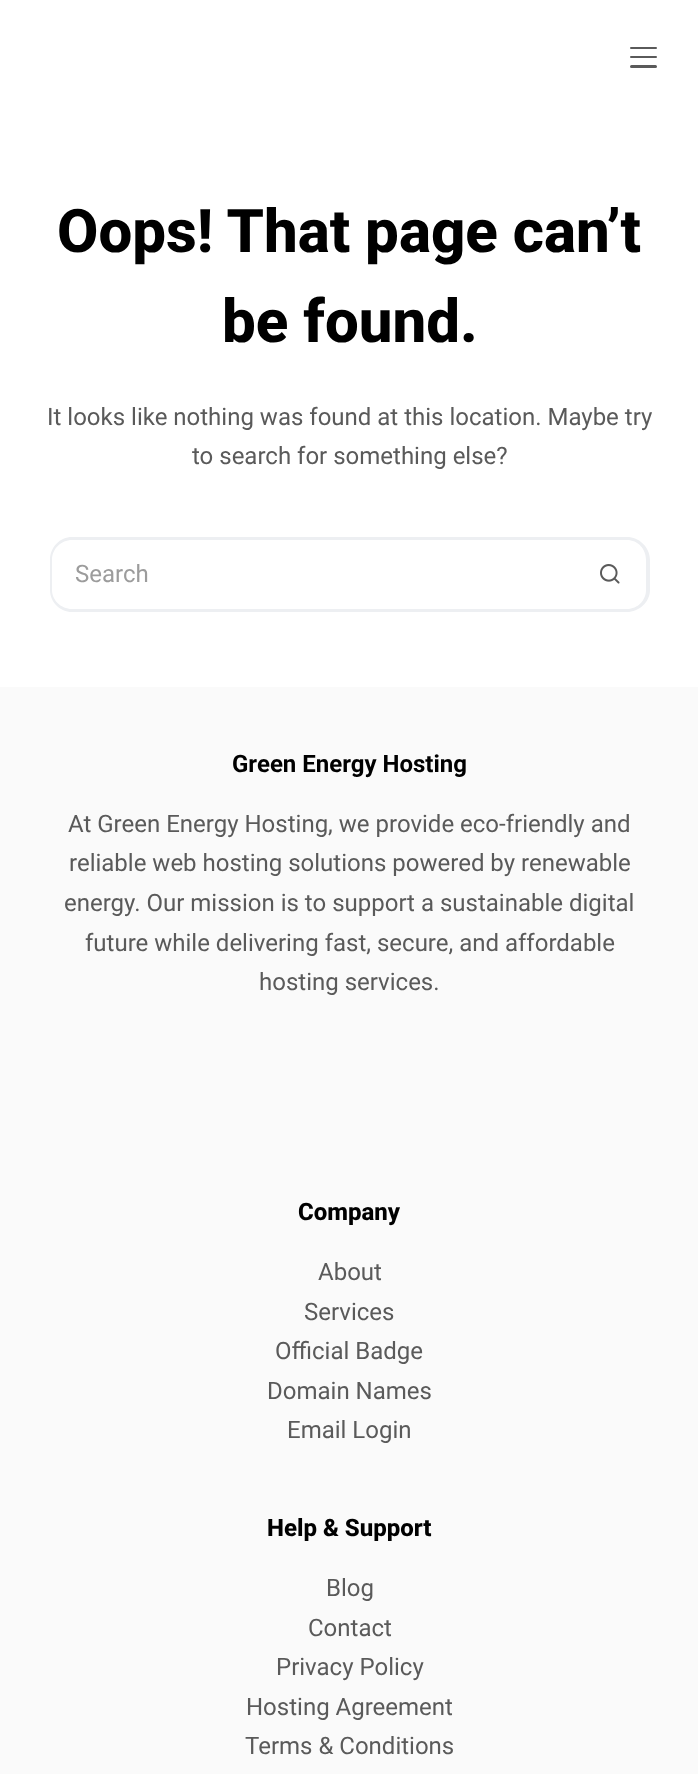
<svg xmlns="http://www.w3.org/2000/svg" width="698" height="1774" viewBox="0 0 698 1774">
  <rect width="100%" height="100%" fill="#fff"/>
  <rect x="630" y="47" width="27" height="2" rx="1" fill="#5a5a5a"/>
  <rect x="630" y="56" width="27" height="2" rx="1" fill="#5a5a5a"/>
  <rect x="630" y="65" width="27" height="3" rx="1.5" fill="#5a5a5a"/>
  <path d="M72 537H574V612H72C60 612 50 602 50 590V560C50 547 60 537 72 537ZM72 540H574V609H72C61 609 52 600 52 590V560C52 549 61 540 72 540Z" fill="#edeff2" fill-rule="evenodd"/>
  <path d="M574 537H627C639 537 650 547 650 560V590C650 602 639 612 627 612H574ZM574 540H627C638 540 646 549 646 560V590C646 600 638 609 627 609H574Z" fill="#edeff2" fill-rule="evenodd"/>
  <image x="600" y="564" width="20" height="20" href="img/1.png"/>
  <path d="M0 687h698v1087H0z" fill="#fafafa"/>
  <g font-family="Roboto" font-size="60" font-weight="800" fill="#000">
    <text x="57" y="252">Oops! That page can’t</text>
    <text x="222" y="342">be found.</text>
  </g>
  <g font-family="Roboto" font-size="24" fill="#5a5a5a">
    <text x="47" y="425">It looks like nothing was found at this location. Maybe try</text>
    <text x="192" y="464">to search for something else?</text>
  </g>
  <text x="75" y="582" font-family="Roboto" font-size="24" fill="#9c9c9c">Search</text>
  <text x="232" y="772" font-family="Roboto" font-size="24" font-weight="bold" fill="#000">Green Energy Hosting</text>
  <g font-family="Roboto" font-size="24" fill="#5a5a5a">
    <text x="68" y="832">At Green Energy Hosting, we provide eco-friendly and</text>
    <text x="69" y="871">reliable web hosting solutions powered by renewable</text>
    <text x="64" y="911">energy. Our mission is to support a sustainable digital</text>
    <text x="85" y="951">future while delivering fast, secure, and affordable</text>
    <text x="259" y="990">hosting services.</text>
  </g>
  <text x="298" y="1220" font-family="Roboto" font-size="24" font-weight="800" fill="#000">Company</text>
  <g font-family="Roboto" font-size="24" fill="#5a5a5a">
    <text x="318" y="1280">About</text>
    <text x="304" y="1320">Services</text>
    <text x="275" y="1359">Official Badge</text>
    <text x="267" y="1399">Domain Names</text>
    <text x="287" y="1438">Email Login</text>
  </g>
  <text x="267" y="1536" font-family="Roboto" font-size="24" font-weight="800" fill="#000">Help &amp; Support</text>
  <g font-family="Roboto" font-size="24" fill="#5a5a5a">
    <text x="326" y="1596">Blog</text>
    <text x="308" y="1636">Contact</text>
    <text x="276" y="1675">Privacy Policy</text>
    <text x="246" y="1715">Hosting Agreement</text>
    <text x="245" y="1754">Terms &amp; Conditions</text>
  </g>
</svg>
